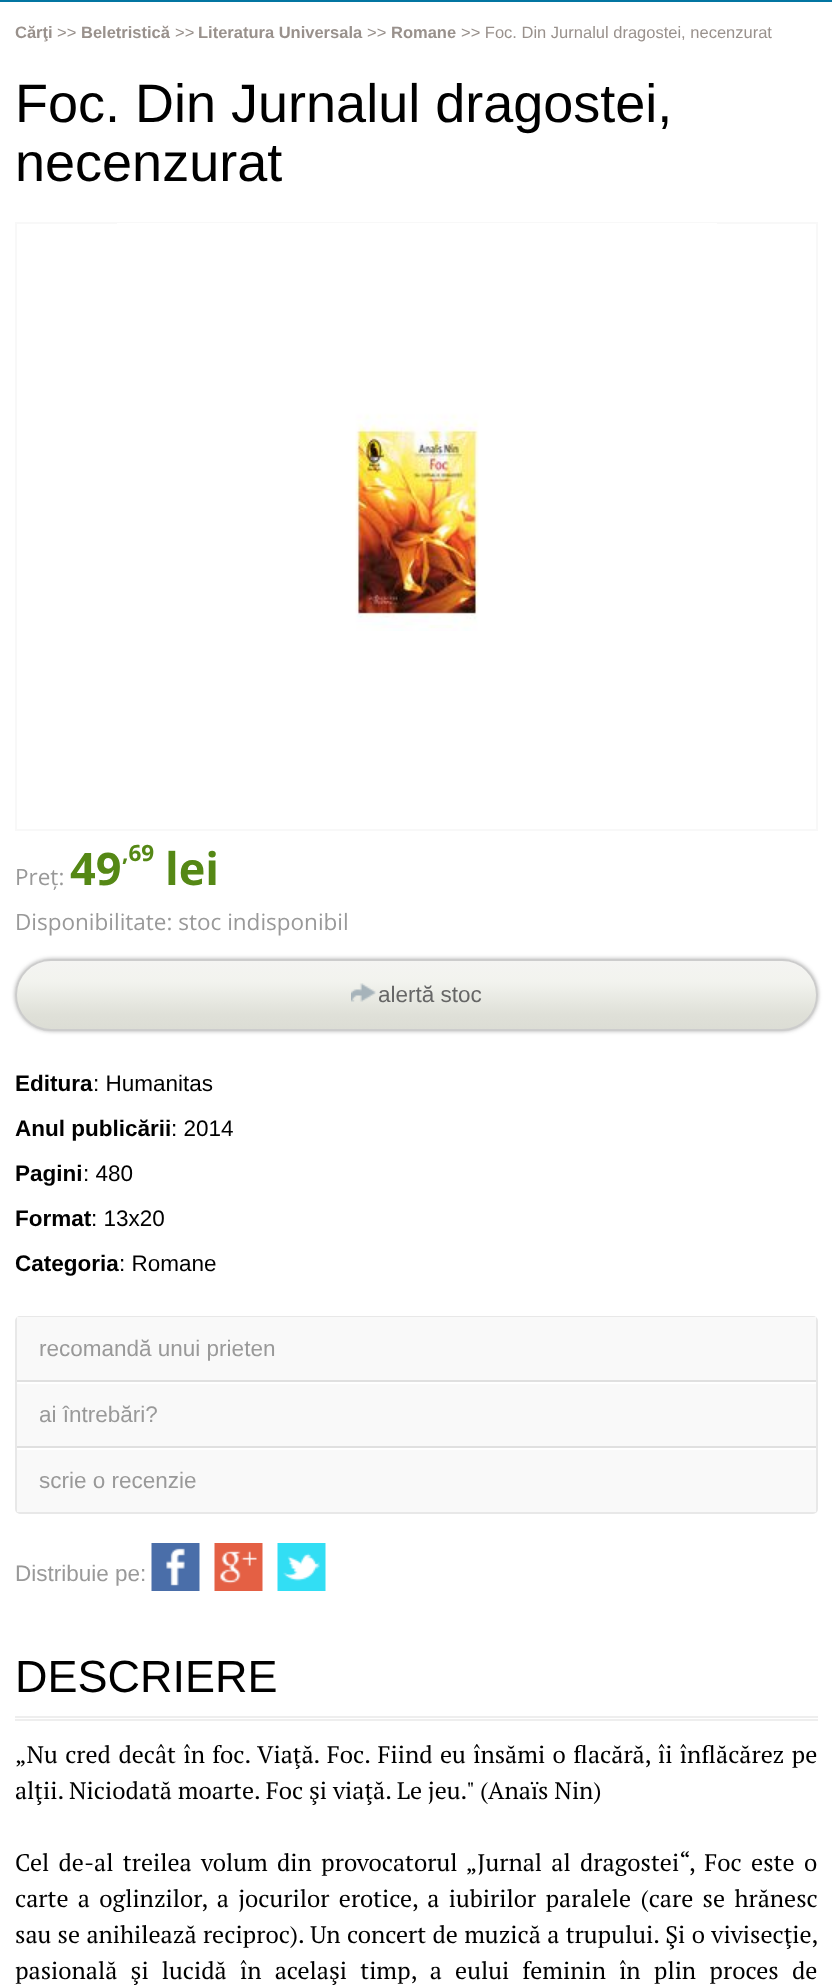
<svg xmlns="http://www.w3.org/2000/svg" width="832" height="1987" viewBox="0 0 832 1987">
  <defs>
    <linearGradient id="g1" gradientUnits="userSpaceOnUse" x1="416" y1="-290" x2="416" y2="1.5"><stop offset="0" stop-color="#0376a2"/><stop offset="0.5" stop-color="#005188"/><stop offset="1" stop-color="#0376a2"/></linearGradient>
    <clipPath id="clip1"><rect x="15" y="959" width="803" height="72" rx="36"/></clipPath>
    <linearGradient id="g2" gradientUnits="userSpaceOnUse" x1="416" y1="960" x2="416" y2="1029"><stop offset="0" stop-color="#f4f4f2"/><stop offset="0.32" stop-color="#f2f3ee"/><stop offset="0.79" stop-color="#dfe0d8"/><stop offset="1" stop-color="#dcddd5"/></linearGradient>
  </defs>
  <rect width="100%" height="100%" fill="#fff"/>
  <path d="M0 0h832v2H0z" fill="url(#g1)"/>
  <path d="M16 223h801v607H16z" fill="none" stroke="#f8f8f8" stroke-width="2"/>
  <image x="117" y="223" width="600" height="408" href="img/1.png"/>
  <rect x="15" y="959" width="803" height="72" rx="36" fill="#32323266" filter="blur(2px)"/>
  <g clip-path="url(#clip1)">
    <path d="M15 960h803v69H15z" fill="url(#g2)"/>
  </g>
  <rect x="16" y="960" width="801" height="70" rx="35" fill="none" stroke="#ccc" stroke-width="2"/>
  <image x="351" y="983" width="25" height="19" href="img/2.png"/>
  <rect x="16" y="1317" width="801" height="196" rx="4" fill="none" stroke="#e8e8e8" stroke-width="2"/>
  <path d="M17 1317h799v63H17z" fill="#f9f9f9"/>
  <path d="M17 1380h799v2H17z" fill="#e0e0e0"/>
  <path d="M17 1384h799v62H17z" fill="#f9f9f9"/>
  <path d="M17 1446h799v2H17z" fill="#e0e0e0"/>
  <path d="M17 1450h799v62H17z" fill="#f9f9f9"/>
  <image x="151" y="1543" width="49" height="48" href="img/3.png"/>
  <image x="214" y="1543" width="49" height="48" href="img/4.png"/>
  <image x="277" y="1543" width="49" height="48" href="img/5.png"/>
  <path d="M15 1716h803v2H15z" fill="#eee"/>
  <path d="M15 1719h803v2H15z" fill="#eee"/>
  <text x="15" y="38" font-family="Liberation Sans" font-size="16.5" font-weight="bold" fill="#99918c">Cărţi</text>
  <text x="57" y="38" font-family="Liberation Sans" font-size="16.5" fill="#99918c">&gt;&gt;</text>
  <text x="81" y="38" font-family="Liberation Sans" font-size="16.5" font-weight="bold" fill="#99918c">Beletristică</text>
  <text x="175" y="38" font-family="Liberation Sans" font-size="16.5" fill="#99918c">&gt;&gt;</text>
  <text x="198" y="38" font-family="Liberation Sans" font-size="16.5" font-weight="bold" fill="#99918c">Literatura Universala</text>
  <text x="367" y="38" font-family="Liberation Sans" font-size="16.5" fill="#99918c">&gt;&gt;</text>
  <text x="391" y="38" font-family="Liberation Sans" font-size="16.5" font-weight="bold" fill="#99918c">Romane</text>
  <text x="461" y="38" font-family="Liberation Sans" font-size="16.5" fill="#99918c">&gt;&gt; Foc. Din Jurnalul dragostei, necenzurat</text>
  <g font-family="Liberation Sans" font-size="54" fill="#000">
    <text x="15" y="122">Foc. Din Jurnalul dragostei,</text>
    <text x="15" y="181">necenzurat</text>
  </g>
  <text x="15" y="885" font-family="Open Sans" font-size="22.5" fill="#999">Preț:</text>
  <text x="70" y="885" font-family="Open Sans" font-size="45" font-weight="bold" fill="#558815">49</text>
  <text x="122" y="861" font-family="Open Sans" font-size="22.5" font-weight="bold" fill="#558815">,69</text>
  <text x="165" y="885" font-family="Open Sans" font-size="45" font-weight="bold" fill="#558815">lei</text>
  <text x="15" y="930" font-family="Open Sans" font-size="22.5" fill="#999">Disponibilitate: stoc indisponibil</text>
  <text x="378" y="1002" font-family="Liberation Sans" font-size="22.5" fill="#666">alertă stoc</text>
  <text x="15" y="1091" font-family="Liberation Sans" font-size="22.5" font-weight="bold" fill="#000">Editura</text>
  <text x="93" y="1091" font-family="Liberation Sans" font-size="22.5" fill="#000">: Humanitas</text>
  <text x="15" y="1136" font-family="Liberation Sans" font-size="22.5" font-weight="bold" fill="#000">Anul publicării</text>
  <text x="171" y="1136" font-family="Liberation Sans" font-size="22.5" fill="#000">: 2014</text>
  <text x="15" y="1181" font-family="Liberation Sans" font-size="22.5" font-weight="bold" fill="#000">Pagini</text>
  <text x="83" y="1181" font-family="Liberation Sans" font-size="22.5" fill="#000">: 480</text>
  <text x="15" y="1226" font-family="Liberation Sans" font-size="22.5" font-weight="bold" fill="#000">Format</text>
  <text x="91" y="1226" font-family="Liberation Sans" font-size="22.5" fill="#000">: 13x20</text>
  <text x="15" y="1271" font-family="Liberation Sans" font-size="22.5" font-weight="bold" fill="#000">Categoria</text>
  <text x="119" y="1271" font-family="Liberation Sans" font-size="22.5" fill="#000">: Romane</text>
  <g font-family="Liberation Sans" font-size="22.5" fill="#999">
    <text x="39" y="1356">recomandă unui prieten</text>
    <text x="39" y="1422">ai întrebări?</text>
    <text x="39" y="1488">scrie o recenzie</text>
    <text x="15" y="1581">Distribuie pe:</text>
  </g>
  <text x="15" y="1692" font-family="Liberation Sans" font-size="45" fill="#000">DESCRIERE</text>
  <g font-family="PT Serif" font-size="24" fill="#000">
    <text x="15" y="1763" word-spacing="1.6">„Nu cred decât în foc. Viaţă. Foc. Fiind eu însămi o flacără, îi înflăcărez pe</text>
    <text x="15" y="1799">alţii. Niciodată moarte. Foc şi viaţă. Le jeu." (Anaïs Nin)</text>
    <text x="15" y="1871" word-spacing="3.5">Cel de-al treilea volum din provocatorul „Jurnal al dragostei“, Foc este o</text>
    <text x="15" y="1907" word-spacing="3.5">carte a oglinzilor, a jocurilor erotice, a iubirilor paralele (care se hrănesc</text>
    <text x="15" y="1943" word-spacing="0.5">sau se anihilează reciproc). Un concert de muzică a trupului. Şi o vivisecţie,</text>
    <text x="15" y="1979" word-spacing="7.4">pasională şi lucidă în acelaşi timp, a eului feminin în plin proces de</text>
  </g>
</svg>
